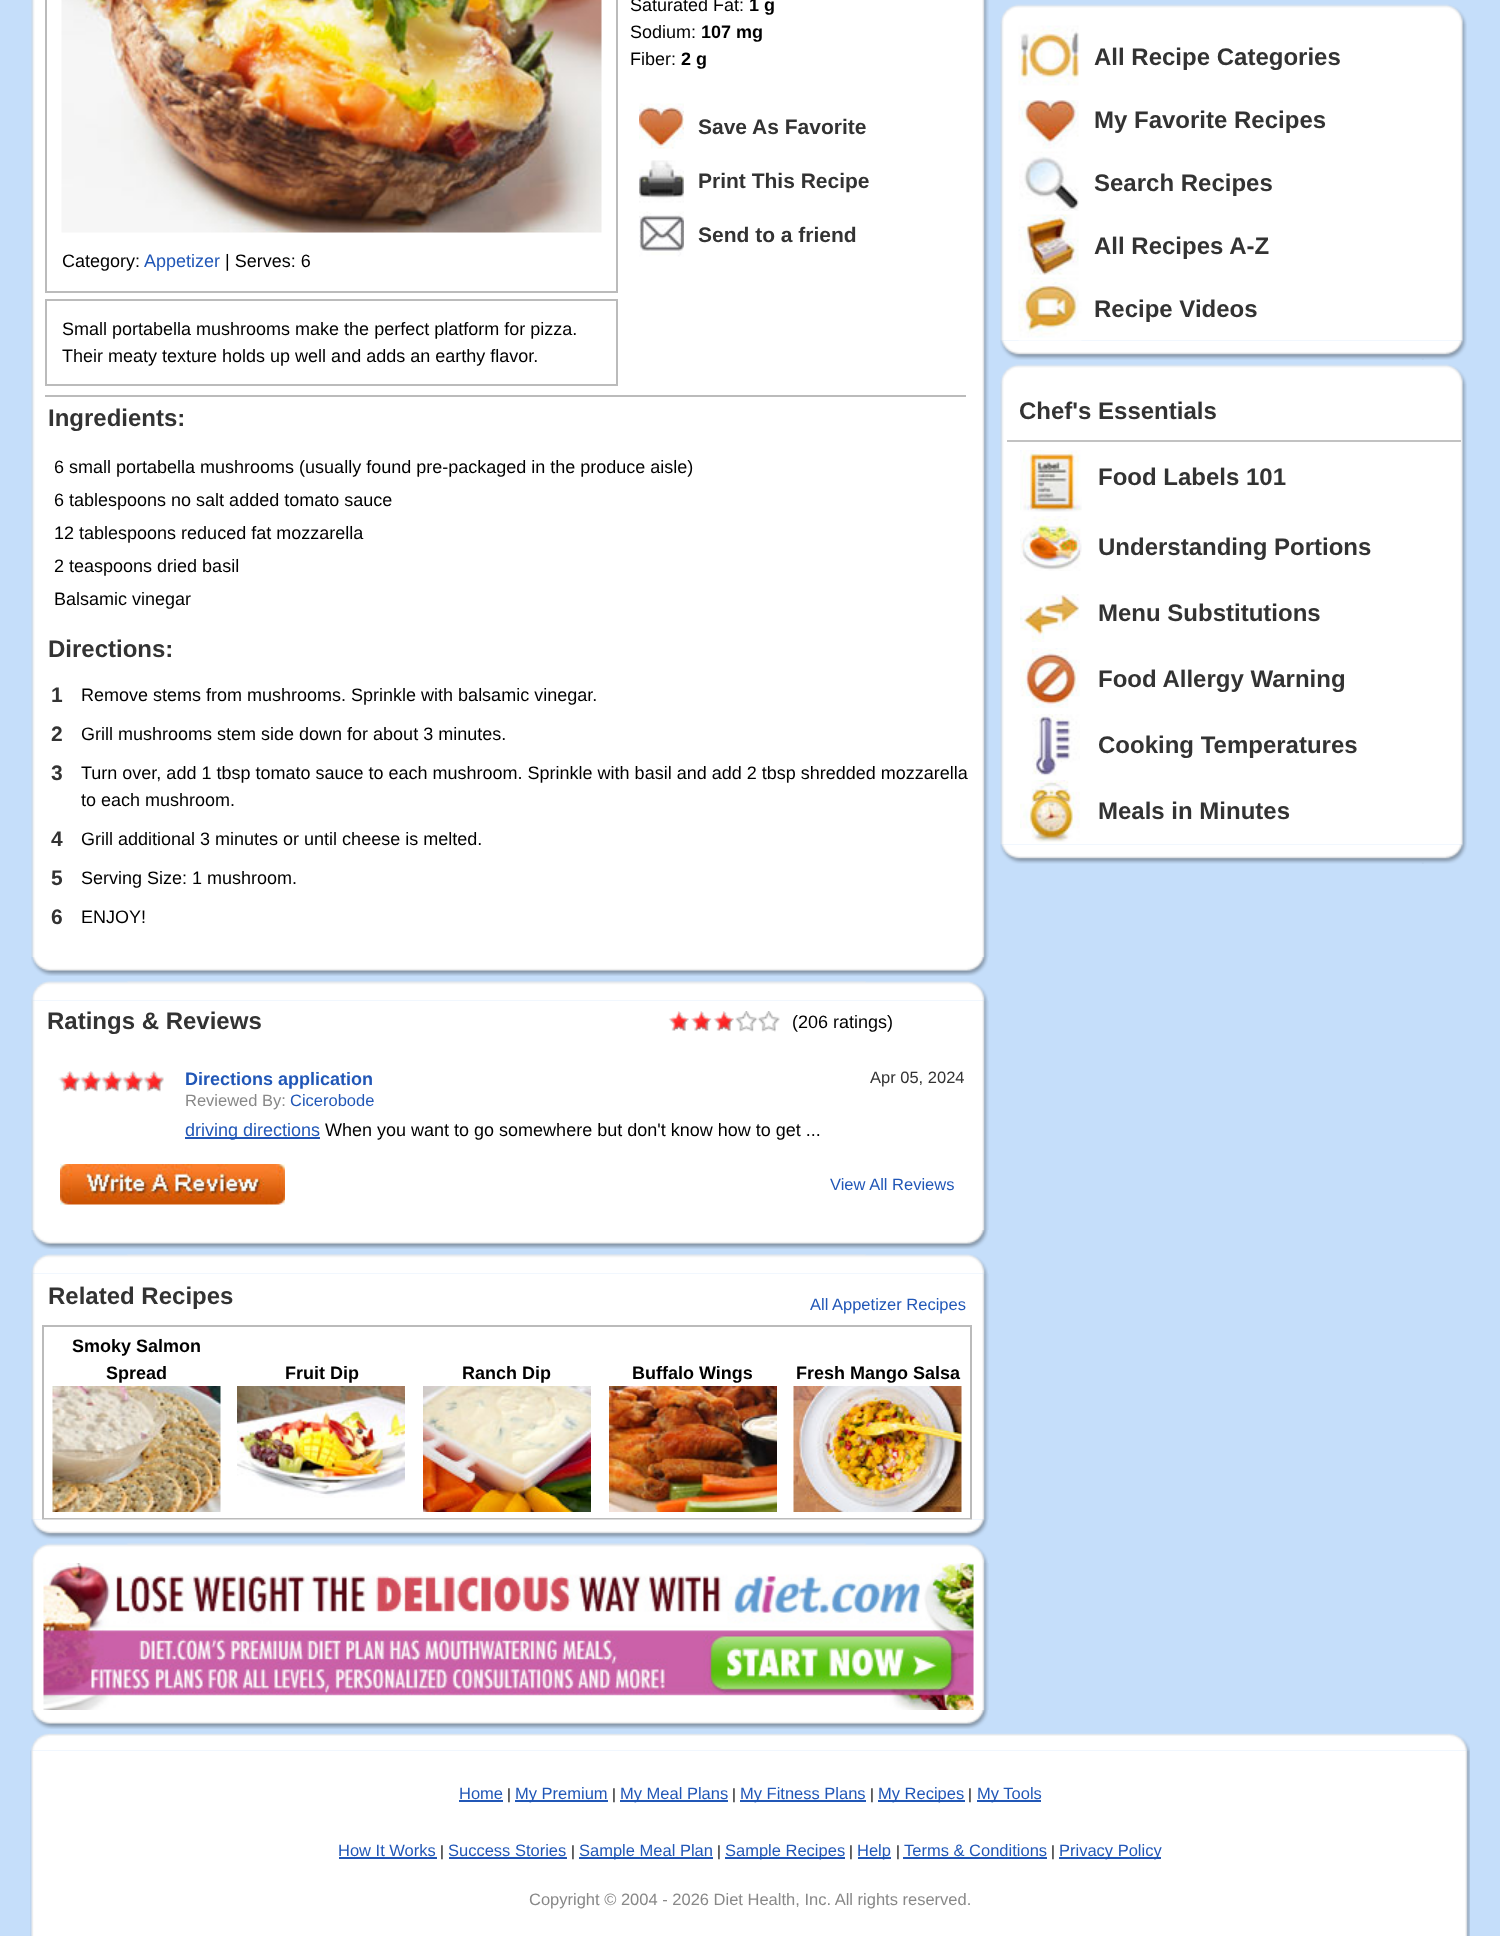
<svg xmlns="http://www.w3.org/2000/svg" width="1500" height="1936" viewBox="0 0 1500 1936">
  <rect width="100%" height="100%" fill="#c5defa"/>
  <image x="31" y="0" width="958" height="957" href="img/1.png"/>
  <image x="639" y="103" width="45" height="46" href="img/2.png"/>
  <image x="639" y="160" width="45" height="43" href="img/3.png"/>
  <image x="639" y="211" width="45" height="46" href="img/4.png"/>
  <path d="M46 -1h571v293H46z" fill="none" stroke="#bbb" stroke-width="2"/>
  <image x="61" y="0" width="541" height="233" href="img/5.png"/>
  <path d="M46 300h571v85H46z" fill="none" stroke="#bbb" stroke-width="2"/>
  <path d="M45 395h921v2H45z" fill="#bbb"/>
  <image x="31" y="957" width="957" height="19" href="img/6.png"/>
  <image x="31" y="981" width="957" height="20" href="img/7.png"/>
  <image x="31" y="1000" width="958" height="230" href="img/8.png"/>
  <image x="668" y="1011" width="21" height="20" href="img/9.png"/>
  <image x="691" y="1011" width="21" height="20" href="img/10.png"/>
  <image x="713" y="1011" width="21" height="20" href="img/9.png"/>
  <image x="735" y="1011" width="23" height="21" href="img/11.png"/>
  <image x="758" y="1011" width="22" height="21" href="img/12.png"/>
  <image x="58" y="1071" width="106" height="21" href="img/13.png"/>
  <path d="M185 1137h135v2H185z" fill="#2157b7"/>
  <image x="60" y="1164" width="225" height="41" href="img/14.png"/>
  <image x="31" y="1230" width="957" height="19" href="img/6.png"/>
  <image x="31" y="1254" width="957" height="20" href="img/7.png"/>
  <image x="31" y="1273" width="958" height="247" href="img/15.png"/>
  <path d="M43 1326h928v193H43z" fill="none" stroke="#bbb" stroke-width="2"/>
  <image x="52" y="1386" width="169" height="126" href="img/16.png"/>
  <image x="237" y="1386" width="168" height="112" href="img/17.png"/>
  <image x="423" y="1386" width="168" height="126" href="img/18.png"/>
  <image x="609" y="1386" width="168" height="126" href="img/19.png"/>
  <image x="793" y="1386" width="169" height="126" href="img/20.png"/>
  <image x="31" y="1519" width="957" height="20" href="img/21.png"/>
  <image x="31" y="1543" width="957" height="20" href="img/22.png"/>
  <image x="31" y="1563" width="958" height="147" href="img/23.png"/>
  <image x="43" y="1563" width="931" height="147" href="img/24.png"/>
  <image x="31" y="1710" width="957" height="19" href="img/6.png"/>
  <image x="1000" y="4" width="467" height="20" href="img/25.png"/>
  <image x="1000" y="24" width="467" height="317" href="img/26.png"/>
  <image x="1018" y="25" width="61" height="61" href="img/27.png"/>
  <image x="1018" y="100" width="61" height="49" href="img/28.png"/>
  <image x="1019" y="151" width="60" height="60" href="img/29.png"/>
  <image x="1018" y="214" width="61" height="61" href="img/30.png"/>
  <image x="1018" y="277" width="64" height="64" href="img/31.png"/>
  <image x="1000" y="340" width="467" height="20" href="img/32.png"/>
  <image x="1000" y="364" width="467" height="20" href="img/25.png"/>
  <image x="1000" y="384" width="467" height="461" href="img/33.png"/>
  <path d="M1007 440h454v2H1007z" fill="#c2c2c2"/>
  <image x="1020" y="450" width="62" height="62" href="img/34.png"/>
  <image x="1020" y="516" width="62" height="55" href="img/35.png"/>
  <image x="1020" y="594" width="60" height="48" href="img/36.png"/>
  <image x="1020" y="648" width="60" height="60" href="img/37.png"/>
  <image x="1032" y="714" width="48" height="62" href="img/38.png"/>
  <image x="1020" y="780" width="60" height="63" href="img/39.png"/>
  <image x="1000" y="844" width="467" height="20" href="img/40.png"/>
  <image x="30" y="1750" width="1440" height="186" href="img/42.png"/>
  <image x="31" y="1733" width="1439" height="18" href="img/41.png"/>
  <path d="M459 1800h44v2H459z" fill="#2157b7"/>
  <path d="M515 1800h93v2H515z" fill="#2157b7"/>
  <path d="M620 1800h108v2H620z" fill="#2157b7"/>
  <path d="M740 1800h126v2H740z" fill="#2157b7"/>
  <path d="M878 1800h87v2H878z" fill="#2157b7"/>
  <path d="M977 1800h64v2H977z" fill="#2157b7"/>
  <path d="M339 1857h98v2H339z" fill="#2157b7"/>
  <path d="M449 1857h118v2H449z" fill="#2157b7"/>
  <path d="M579 1857h134v2H579z" fill="#2157b7"/>
  <path d="M725 1857h120v2H725z" fill="#2157b7"/>
  <path d="M858 1857h33v2H858z" fill="#2157b7"/>
  <path d="M903 1857h144v2H903z" fill="#2157b7"/>
  <path d="M1059 1857h102v2H1059z" fill="#2157b7"/>
  <text x="630" y="11" font-family="Liberation Sans" font-size="18" fill="#000">Saturated Fat:</text>
  <text x="749" y="11" font-family="Liberation Sans" font-size="18" font-weight="bold" fill="#000">1 g</text>
  <text x="630" y="38" font-family="Liberation Sans" font-size="18" fill="#000">Sodium:</text>
  <text x="701" y="38" font-family="Liberation Sans" font-size="18" font-weight="bold" fill="#000">107 mg</text>
  <text x="630" y="65" font-family="Liberation Sans" font-size="18" fill="#000">Fiber:</text>
  <text x="681" y="65" font-family="Liberation Sans" font-size="18" font-weight="bold" fill="#000">2 g</text>
  <g font-family="Liberation Sans" font-size="21" font-weight="bold" fill="#333">
    <text x="698" y="134">Save As Favorite</text>
    <text x="698" y="188">Print This Recipe</text>
    <text x="698" y="242">Send to a friend</text>
  </g>
  <text x="62" y="267" font-family="Liberation Sans" font-size="18" fill="#000">Category:</text>
  <text x="144" y="267" font-family="Liberation Sans" font-size="18" fill="#2157b7">Appetizer</text>
  <g font-family="Liberation Sans" font-size="18" fill="#000">
    <text x="225" y="267">| Serves: 6</text>
    <text x="62" y="335">Small portabella mushrooms make the perfect platform for pizza.</text>
    <text x="62" y="362">Their meaty texture holds up well and adds an earthy flavor.</text>
  </g>
  <text x="48" y="426" font-family="Liberation Sans" font-size="24" font-weight="bold" fill="#333">Ingredients:</text>
  <g font-family="Liberation Sans" font-size="18" fill="#000">
    <text x="54" y="473">6 small portabella mushrooms (usually found pre-packaged in the produce aisle)</text>
    <text x="54" y="506">6 tablespoons no salt added tomato sauce</text>
    <text x="54" y="539">12 tablespoons reduced fat mozzarella</text>
    <text x="54" y="572">2 teaspoons dried basil</text>
    <text x="54" y="605">Balsamic vinegar</text>
  </g>
  <text x="48" y="657" font-family="Liberation Sans" font-size="24" font-weight="bold" fill="#333">Directions:</text>
  <text x="51" y="702" font-family="Liberation Sans" font-size="21" font-weight="bold" fill="#333">1</text>
  <text x="81" y="701" font-family="Liberation Sans" font-size="18" fill="#000">Remove stems from mushrooms. Sprinkle with balsamic vinegar.</text>
  <text x="51" y="741" font-family="Liberation Sans" font-size="21" font-weight="bold" fill="#333">2</text>
  <text x="81" y="740" font-family="Liberation Sans" font-size="18" fill="#000">Grill mushrooms stem side down for about 3 minutes.</text>
  <text x="51" y="780" font-family="Liberation Sans" font-size="21" font-weight="bold" fill="#333">3</text>
  <g font-family="Liberation Sans" font-size="18" fill="#000">
    <text x="81" y="779">Turn over, add 1 tbsp tomato sauce to each mushroom. Sprinkle with basil and add 2 tbsp shredded mozzarella</text>
    <text x="81" y="806">to each mushroom.</text>
  </g>
  <text x="51" y="846" font-family="Liberation Sans" font-size="21" font-weight="bold" fill="#333">4</text>
  <text x="81" y="845" font-family="Liberation Sans" font-size="18" fill="#000">Grill additional 3 minutes or until cheese is melted.</text>
  <text x="51" y="885" font-family="Liberation Sans" font-size="21" font-weight="bold" fill="#333">5</text>
  <text x="81" y="884" font-family="Liberation Sans" font-size="18" fill="#000">Serving Size: 1 mushroom.</text>
  <text x="51" y="924" font-family="Liberation Sans" font-size="21" font-weight="bold" fill="#333">6</text>
  <text x="81" y="923" font-family="Liberation Sans" font-size="18" fill="#000">ENJOY!</text>
  <text x="47" y="1029" font-family="Liberation Sans" font-size="24" font-weight="bold" fill="#333">Ratings &amp; Reviews</text>
  <text x="792" y="1028" font-family="Liberation Sans" font-size="18" fill="#000">(206 ratings)</text>
  <text x="185" y="1085" font-family="Liberation Sans" font-size="18" font-weight="bold" fill="#2157b7">Directions application</text>
  <text x="185" y="1106" font-family="Liberation Sans" font-size="16.5" fill="#888">Reviewed By:</text>
  <text x="290" y="1106" font-family="Liberation Sans" font-size="16.5" fill="#2157b7">Cicerobode</text>
  <text x="185" y="1136" font-family="Liberation Sans" font-size="18" fill="#2157b7">driving directions</text>
  <text x="325" y="1136" font-family="Liberation Sans" font-size="18" fill="#000">When you want to go somewhere but don't know how to get ...</text>
  <text x="870" y="1083" font-family="Liberation Sans" font-size="16.5" fill="#333">Apr 05, 2024</text>
  <text x="830" y="1190" font-family="Liberation Sans" font-size="16.5" fill="#2157b7">View All Reviews</text>
  <text x="48" y="1304" font-family="Liberation Sans" font-size="24" font-weight="bold" fill="#333">Related Recipes</text>
  <text x="810" y="1310" font-family="Liberation Sans" font-size="16.5" fill="#2157b7">All Appetizer Recipes</text>
  <g font-family="Liberation Sans" font-size="18" font-weight="bold" fill="#000">
    <text x="72" y="1352">Smoky Salmon</text>
    <text x="106" y="1379">Spread</text>
    <text x="285" y="1379">Fruit Dip</text>
    <text x="462" y="1379">Ranch Dip</text>
    <text x="632" y="1379">Buffalo Wings</text>
    <text x="796" y="1379">Fresh Mango Salsa</text>
  </g>
  <g font-family="Liberation Sans" font-size="24" font-weight="bold" fill="#333">
    <text x="1094" y="65">All Recipe Categories</text>
    <text x="1094" y="128">My Favorite Recipes</text>
    <text x="1094" y="191">Search Recipes</text>
    <text x="1094" y="254">All Recipes A-Z</text>
    <text x="1094" y="317">Recipe Videos</text>
    <text x="1019" y="419">Chef's Essentials</text>
    <text x="1098" y="485">Food Labels 101</text>
    <text x="1098" y="555">Understanding Portions</text>
    <text x="1098" y="621">Menu Substitutions</text>
    <text x="1098" y="687">Food Allergy Warning</text>
    <text x="1098" y="753">Cooking Temperatures</text>
    <text x="1098" y="819">Meals in Minutes</text>
  </g>
  <text x="459" y="1799" font-family="Liberation Sans" font-size="16.5" fill="#2157b7">Home</text>
  <text x="507" y="1799" font-family="Liberation Sans" font-size="15" fill="#000">|</text>
  <text x="515" y="1799" font-family="Liberation Sans" font-size="16.5" fill="#2157b7">My Premium</text>
  <text x="612" y="1799" font-family="Liberation Sans" font-size="15" fill="#000">|</text>
  <text x="620" y="1799" font-family="Liberation Sans" font-size="16.5" fill="#2157b7">My Meal Plans</text>
  <text x="732" y="1799" font-family="Liberation Sans" font-size="15" fill="#000">|</text>
  <text x="740" y="1799" font-family="Liberation Sans" font-size="16.5" fill="#2157b7">My Fitness Plans</text>
  <text x="870" y="1799" font-family="Liberation Sans" font-size="15" fill="#000">|</text>
  <text x="878" y="1799" font-family="Liberation Sans" font-size="16.5" fill="#2157b7">My Recipes</text>
  <text x="968" y="1799" font-family="Liberation Sans" font-size="15" fill="#000">|</text>
  <g font-family="Liberation Sans" font-size="16.5" fill="#2157b7">
    <text x="977" y="1799">My Tools</text>
    <text x="338" y="1856">How It Works</text>
  </g>
  <text x="440" y="1856" font-family="Liberation Sans" font-size="15" fill="#000">|</text>
  <text x="448" y="1856" font-family="Liberation Sans" font-size="16.5" fill="#2157b7">Success Stories</text>
  <text x="571" y="1856" font-family="Liberation Sans" font-size="15" fill="#000">|</text>
  <text x="579" y="1856" font-family="Liberation Sans" font-size="16.5" fill="#2157b7">Sample Meal Plan</text>
  <text x="717" y="1856" font-family="Liberation Sans" font-size="15" fill="#000">|</text>
  <text x="725" y="1856" font-family="Liberation Sans" font-size="16.5" fill="#2157b7">Sample Recipes</text>
  <text x="849" y="1856" font-family="Liberation Sans" font-size="15" fill="#000">|</text>
  <text x="857" y="1856" font-family="Liberation Sans" font-size="16.5" fill="#2157b7">Help</text>
  <text x="896" y="1856" font-family="Liberation Sans" font-size="15" fill="#000">|</text>
  <text x="904" y="1856" font-family="Liberation Sans" font-size="16.5" fill="#2157b7">Terms &amp; Conditions</text>
  <text x="1051" y="1856" font-family="Liberation Sans" font-size="15" fill="#000">|</text>
  <text x="1059" y="1856" font-family="Liberation Sans" font-size="16.5" fill="#2157b7">Privacy Policy</text>
  <text x="529" y="1905" font-family="Liberation Sans" font-size="16.5" fill="#888">Copyright © 2004 - 2026 Diet Health, Inc. All rights reserved.</text>
</svg>
